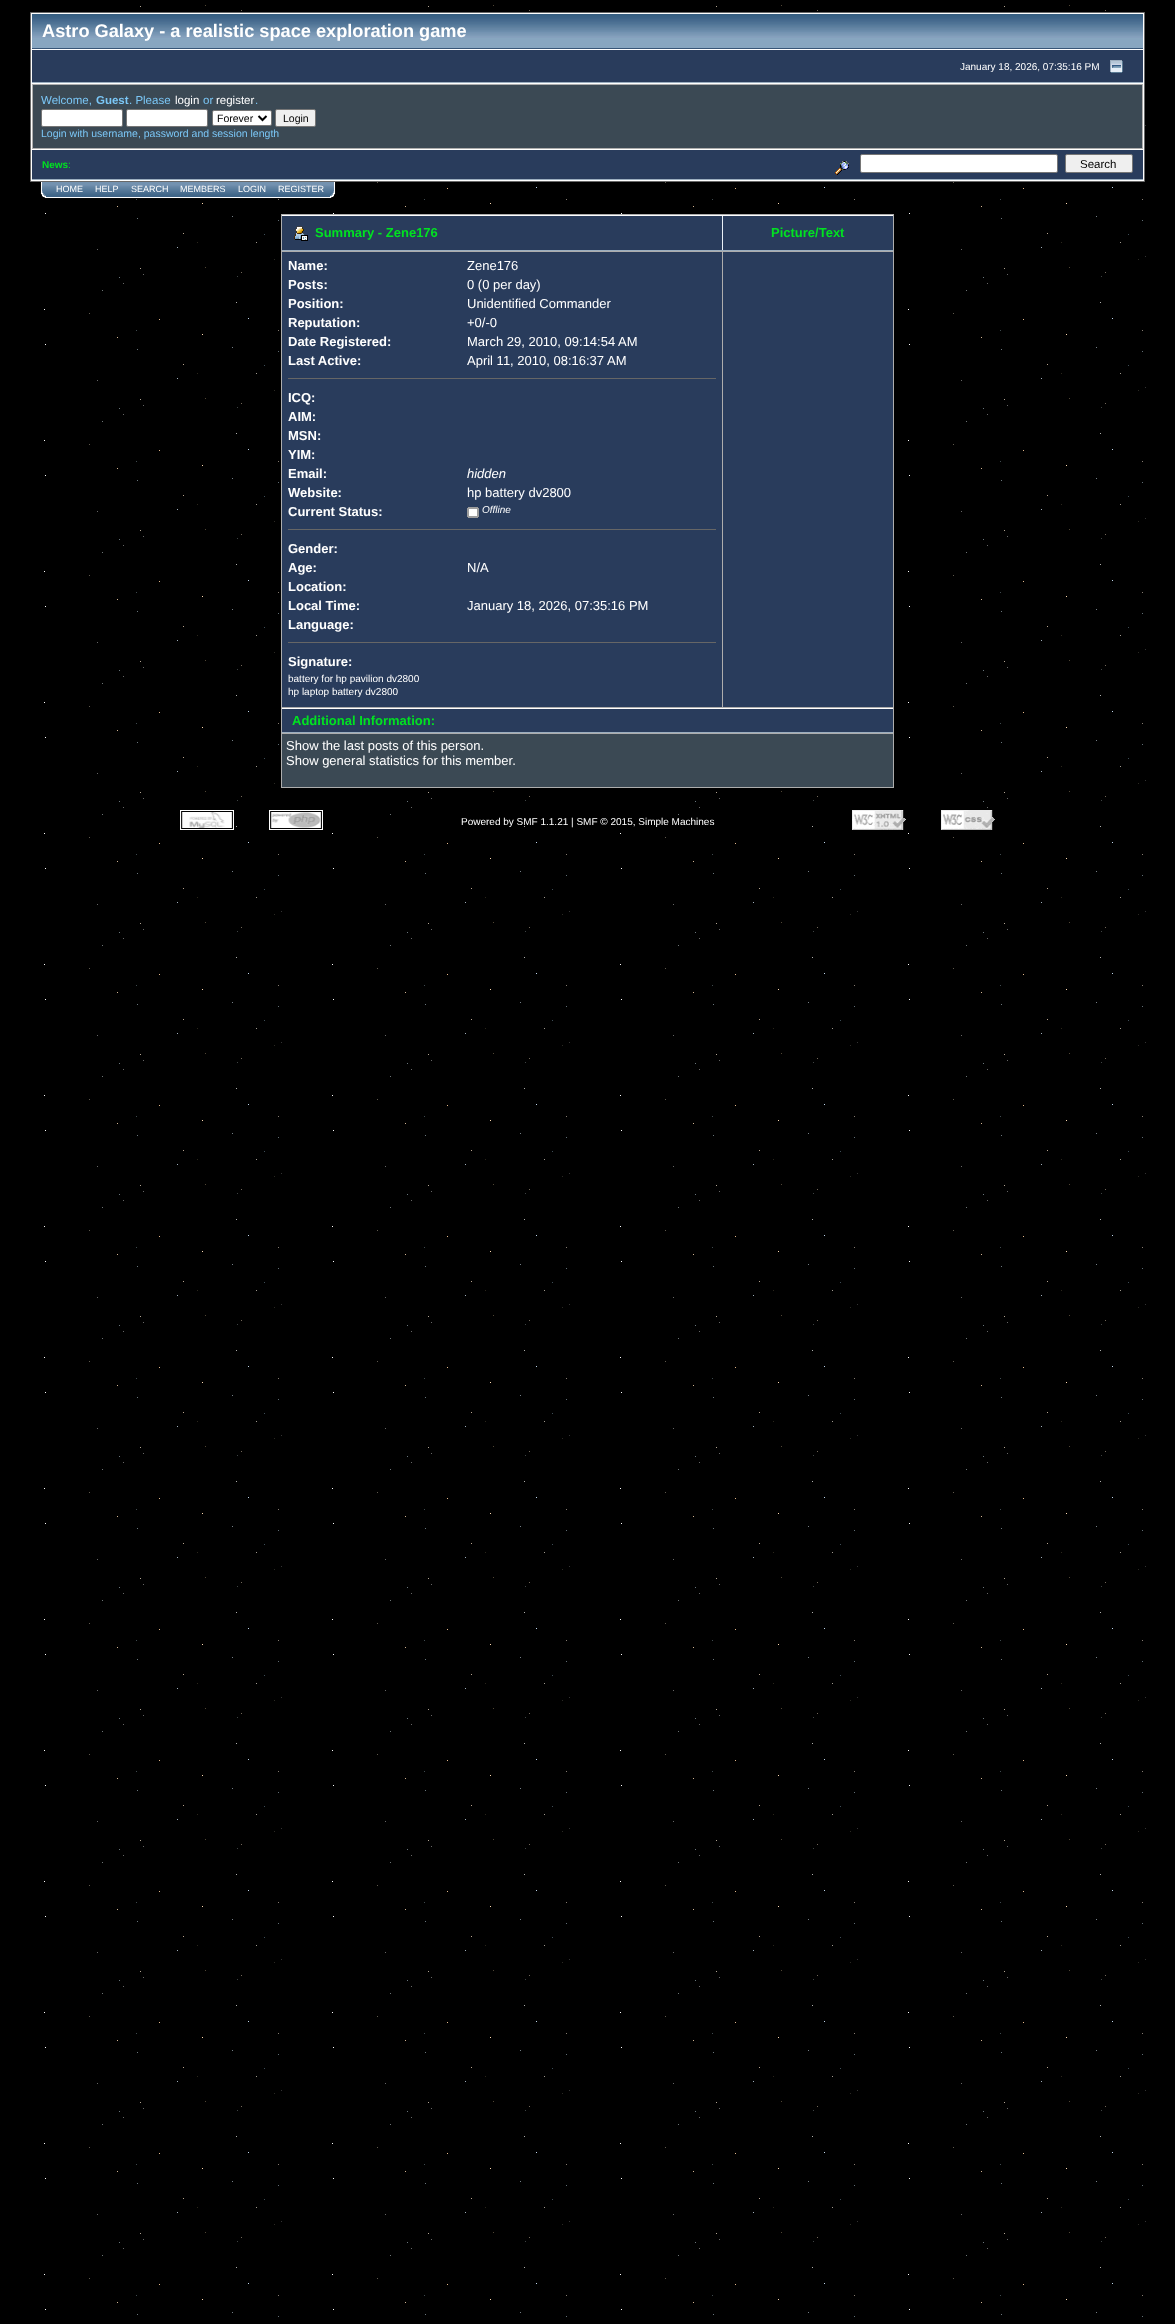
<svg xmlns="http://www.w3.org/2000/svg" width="1175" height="2324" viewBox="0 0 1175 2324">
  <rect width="100%" height="100%" fill="#fff"/>
  <image x="0" y="0" width="1175" height="2324" href="img/1.png"/>
  <path d="M30.5 12.5h1114v169H30.5z" fill="#fff" stroke="#696969"/>
  <path d="M32 38h1111v10H32z" fill="#88a6c0"/>
  <image x="32" y="14" width="680" height="24" href="img/2.png"/>
  <path d="M32 48h1111v1H32z" fill="#375576"/>
  <image x="712" y="14" width="431" height="24" href="img/3.png"/>
  <path d="M32 50h1111v32H32z" fill="#293c5c"/>
  <path d="M32 82h1111v1H32z" fill="#9baebf"/>
  <image x="1110" y="60" width="13" height="13" href="img/4.png"/>
  <path d="M32 84h1111v65H32z" fill="#adadad"/>
  <path d="M33 85h1109v63H33z" fill="#3b4954"/>
  <rect x="41.5" y="109.5" width="81" height="17" rx="1.5" fill="#fff" stroke="#767676"/>
  <rect x="126.5" y="109.5" width="81" height="17" rx="1.5" fill="#fff" stroke="#767676"/>
  <rect x="212.5" y="110.5" width="59" height="15" rx="1.5" fill="#fff" stroke="#767676"/>
  <path d="M258.5 116L262.5 120L266.5 116" fill="none" stroke="#000" stroke-width="2"/>
  <rect x="275.5" y="109.5" width="40" height="17" rx="1.5" fill="#efefef" stroke="#767676"/>
  <path d="M32 150h1111v29H32z" fill="#293c5c"/>
  <path d="M32 179h1111v1H32z" fill="#9baebf"/>
  <image x="835" y="161" width="14" height="14" href="img/5.png"/>
  <rect x="860.5" y="154.5" width="197" height="18" rx="1.5" fill="#fff" stroke="#767676"/>
  <rect x="1065.5" y="154.5" width="67" height="18" rx="1.5" fill="#efefef" stroke="#767676"/>
  <image x="40" y="182" width="10" height="17" href="img/6.png"/>
  <image x="50" y="182" width="39" height="17" href="img/7.png"/>
  <image x="89" y="182" width="36" height="17" href="img/8.png"/>
  <image x="125" y="182" width="49" height="17" href="img/9.png"/>
  <image x="174" y="182" width="58" height="17" href="img/10.png"/>
  <image x="232" y="182" width="40" height="17" href="img/11.png"/>
  <image x="272" y="182" width="58" height="17" href="img/10.png"/>
  <image x="330" y="182" width="6" height="17" href="img/12.png"/>
  <path d="M281 214h613v574H281z" fill="#adadad"/>
  <path d="M722 216h1v34H722z" fill="#e9f0f6"/>
  <path d="M282 215h611v1H282z" fill="#fff"/>
  <path d="M282 250h611v1H282z" fill="#9baebf"/>
  <path d="M282 216h440v34H282z" fill="#293c5c"/>
  <image x="294" y="226" width="14" height="15" href="img/13.png"/>
  <path d="M723 216h170v34H723z" fill="#293c5c"/>
  <path d="M282 252h440v455H282z" fill="#293c5c"/>
  <path d="M288 378h428v1H288z" fill="#666"/>
  <image x="467" y="507" width="12" height="11" href="img/14.png"/>
  <path d="M288 529h428v1H288z" fill="#666"/>
  <path d="M288 642h428v1H288z" fill="#666"/>
  <path d="M723 252h170v455H723z" fill="#293c5c"/>
  <path d="M282 709h611v23H282z" fill="#293c5c"/>
  <path d="M282 708h611v1H282z" fill="#fff"/>
  <path d="M282 732h611v1H282z" fill="#9baebf"/>
  <path d="M282 734h611v53H282z" fill="#3b4954"/>
  <image x="180" y="810" width="54" height="20" href="img/15.png"/>
  <image x="269" y="810" width="54" height="20" href="img/16.png"/>
  <image x="852" y="810" width="54" height="20" href="img/17.png"/>
  <image x="941" y="810" width="54" height="20" href="img/18.png"/>
  <text x="42" y="37" font-family="Liberation Sans" font-size="18.2" font-weight="bold" fill="#fff">Astro Galaxy - a realistic space exploration game</text>
  <text x="960" y="70" font-family="Liberation Sans" font-size="10" fill="#fff">January 18, 2026, 07:35:16 PM</text>
  <text x="41" y="104" font-family="Liberation Sans" font-size="11.5" fill="#7bc7f7">Welcome,</text>
  <text x="96" y="104" font-family="Liberation Sans" font-size="11.5" font-weight="bold" fill="#7bc7f7">Guest</text>
  <text x="129" y="104" font-family="Liberation Sans" font-size="11.5" fill="#7bc7f7">. Please</text>
  <text x="175" y="104" font-family="Liberation Sans" font-size="11.5" fill="#fff">login</text>
  <text x="203" y="104" font-family="Liberation Sans" font-size="11.5" fill="#7bc7f7">or</text>
  <text x="216" y="104" font-family="Liberation Sans" font-size="11.5" fill="#fff">register</text>
  <text x="255" y="104" font-family="Liberation Sans" font-size="11.5" fill="#7bc7f7">.</text>
  <g font-family="Liberation Sans" font-size="10.5" fill="#000">
    <text x="217" y="122">Forever</text>
    <text x="283" y="122">Login</text>
  </g>
  <text x="41" y="137" font-family="Liberation Sans" font-size="10.5" fill="#7bc7f7">Login with username, password and session length</text>
  <text x="42" y="168" font-family="Liberation Sans" font-size="10" font-weight="bold" fill="#01e221">News</text>
  <text x="68" y="168" font-family="Liberation Sans" font-size="10" fill="#01e221">:</text>
  <text x="1080" y="168" font-family="Liberation Sans" font-size="11.5" fill="#000">Search</text>
  <g font-family="Liberation Sans" font-size="9" fill="#fff">
    <text x="56" y="192">HOME</text>
    <text x="95" y="192">HELP</text>
    <text x="131" y="192">SEARCH</text>
    <text x="180" y="192">MEMBERS</text>
    <text x="238" y="192">LOGIN</text>
    <text x="278" y="192">REGISTER</text>
  </g>
  <g font-family="Liberation Sans" font-size="13" font-weight="bold" fill="#01e221">
    <text x="315" y="237">Summary - Zene176</text>
    <text x="771" y="237">Picture/Text</text>
  </g>
  <text x="288" y="270" font-family="Liberation Sans" font-size="13" font-weight="bold" fill="#fff">Name:</text>
  <text x="467" y="270" font-family="Liberation Sans" font-size="13" fill="#fff">Zene176</text>
  <text x="288" y="289" font-family="Liberation Sans" font-size="13" font-weight="bold" fill="#fff">Posts:</text>
  <text x="467" y="289" font-family="Liberation Sans" font-size="13" fill="#fff">0 (0 per day)</text>
  <text x="288" y="308" font-family="Liberation Sans" font-size="13" font-weight="bold" fill="#fff">Position:</text>
  <text x="467" y="308" font-family="Liberation Sans" font-size="13" fill="#fff">Unidentified Commander</text>
  <text x="288" y="327" font-family="Liberation Sans" font-size="13" font-weight="bold" fill="#fff">Reputation:</text>
  <text x="467" y="327" font-family="Liberation Sans" font-size="13" fill="#fff">+0/-0</text>
  <text x="288" y="346" font-family="Liberation Sans" font-size="13" font-weight="bold" fill="#fff">Date Registered:</text>
  <text x="467" y="346" font-family="Liberation Sans" font-size="13" fill="#fff">March 29, 2010, 09:14:54 AM</text>
  <text x="288" y="365" font-family="Liberation Sans" font-size="13" font-weight="bold" fill="#fff">Last Active:</text>
  <text x="467" y="365" font-family="Liberation Sans" font-size="13" fill="#fff">April 11, 2010, 08:16:37 AM</text>
  <g font-family="Liberation Sans" font-size="13" font-weight="bold" fill="#fff">
    <text x="288" y="402">ICQ:</text>
    <text x="288" y="421">AIM:</text>
    <text x="288" y="440">MSN:</text>
    <text x="288" y="459">YIM:</text>
    <text x="288" y="478">Email:</text>
  </g>
  <text x="467" y="478" font-family="Liberation Sans" font-size="13" font-style="italic" fill="#fff">hidden</text>
  <text x="288" y="497" font-family="Liberation Sans" font-size="13" font-weight="bold" fill="#fff">Website:</text>
  <text x="467" y="497" font-family="Liberation Sans" font-size="13" fill="#fff">hp battery dv2800</text>
  <text x="288" y="516" font-family="Liberation Sans" font-size="13" font-weight="bold" fill="#fff">Current Status:</text>
  <text x="482" y="513" font-family="Liberation Sans" font-size="10" font-style="italic" fill="#fff">Offline</text>
  <g font-family="Liberation Sans" font-size="13" font-weight="bold" fill="#fff">
    <text x="288" y="553">Gender:</text>
    <text x="288" y="572">Age:</text>
  </g>
  <text x="467" y="572" font-family="Liberation Sans" font-size="13" fill="#fff">N/A</text>
  <g font-family="Liberation Sans" font-size="13" font-weight="bold" fill="#fff">
    <text x="288" y="591">Location:</text>
    <text x="288" y="610">Local Time:</text>
  </g>
  <text x="467" y="610" font-family="Liberation Sans" font-size="13" fill="#fff">January 18, 2026, 07:35:16 PM</text>
  <g font-family="Liberation Sans" font-size="13" font-weight="bold" fill="#fff">
    <text x="288" y="629">Language:</text>
    <text x="288" y="666">Signature:</text>
  </g>
  <g font-family="Liberation Sans" font-size="10" fill="#fff">
    <text x="288" y="682">battery for hp pavilion dv2800</text>
    <text x="288" y="695">hp laptop battery dv2800</text>
  </g>
  <text x="292" y="725" font-family="Liberation Sans" font-size="13" font-weight="bold" fill="#01e221">Additional Information:</text>
  <g font-family="Liberation Sans" font-size="13" fill="#fff">
    <text x="286" y="750">Show the last posts of this person.</text>
    <text x="286" y="765">Show general statistics for this member.</text>
  </g>
  <text x="461" y="825" font-family="Liberation Sans" font-size="10" fill="#fff">Powered by SMF 1.1.21 | SMF © 2015, Simple Machines</text>
</svg>
